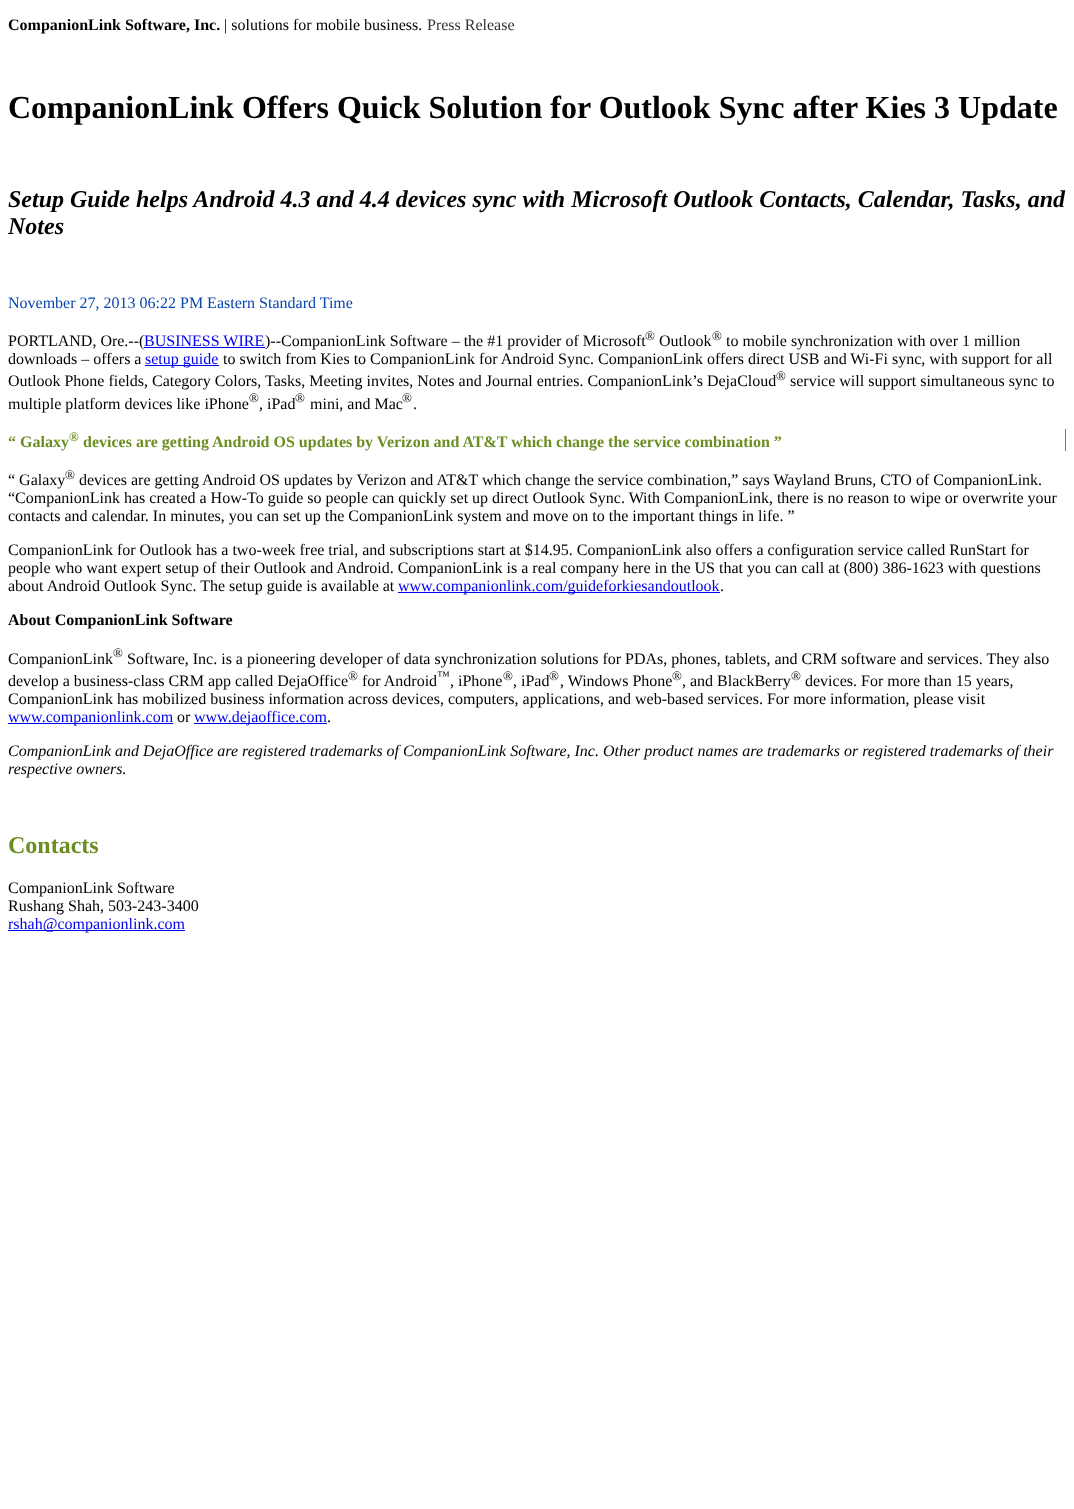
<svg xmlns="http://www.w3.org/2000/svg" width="1074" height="1509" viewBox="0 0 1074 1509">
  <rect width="100%" height="100%" fill="#fff"/>
  <path d="M144 347h121v1H144z" fill="#00e"/>
  <path d="M145 365h74v1H145z" fill="#00e"/>
  <path d="M1065 429h1v22H1065z" fill="#6b8e23"/>
  <path d="M398 592h322v1H398z" fill="#00e"/>
  <path d="M8 723h165v1H8z" fill="#00e"/>
  <path d="M194 723h133v1H194z" fill="#00e"/>
  <path d="M8 930h177v1H8z" fill="#00e"/>
  <text x="8" y="30" font-family="Liberation Serif" font-size="16" font-weight="bold" fill="#000">CompanionLink Software, Inc.</text>
  <text x="224" y="30" font-family="Liberation Serif" font-size="16" fill="#000">| solutions for mobile business.</text>
  <text x="427" y="30" font-family="Liberation Serif" font-size="16" fill="#333">Press Release</text>
  <text x="8" y="118" font-family="Liberation Serif" font-size="32" font-weight="bold" fill="#000">CompanionLink Offers Quick Solution for Outlook Sync after Kies 3 Update</text>
  <g font-family="Liberation Serif" font-size="24" font-weight="bold" font-style="italic" fill="#000">
    <text x="8" y="207">Setup Guide helps Android 4.3 and 4.4 devices sync with Microsoft Outlook Contacts, Calendar, Tasks, and</text>
    <text x="8" y="234">Notes</text>
  </g>
  <text x="8" y="308" font-family="Liberation Serif" font-size="16" fill="#0645ad">November 27, 2013 06:22 PM Eastern Standard Time</text>
  <text x="8" y="346" font-family="Liberation Serif" font-size="16" fill="#000">PORTLAND, Ore.--(</text>
  <text x="144" y="346" font-family="Liberation Serif" font-size="16" fill="#00e">BUSINESS WIRE</text>
  <text x="265" y="346" font-family="Liberation Serif" font-size="16" fill="#000">)--CompanionLink Software – the #1 provider of Microsoft</text>
  <text x="645" y="340" font-family="Liberation Serif" font-size="13" fill="#000">®</text>
  <text x="659" y="346" font-family="Liberation Serif" font-size="16" fill="#000">Outlook</text>
  <text x="712" y="340" font-family="Liberation Serif" font-size="13" fill="#000">®</text>
  <g font-family="Liberation Serif" font-size="16" fill="#000">
    <text x="726" y="346">to mobile synchronization with over 1 million</text>
    <text x="8" y="364">downloads – offers a</text>
  </g>
  <text x="145" y="364" font-family="Liberation Serif" font-size="16" fill="#00e">setup guide</text>
  <g font-family="Liberation Serif" font-size="16" fill="#000">
    <text x="223" y="364">to switch from Kies to CompanionLink for Android Sync. CompanionLink offers direct USB and Wi-Fi sync, with support for all</text>
    <text x="8" y="386">Outlook Phone fields, Category Colors, Tasks, Meeting invites, Notes and Journal entries. CompanionLink’s DejaCloud</text>
  </g>
  <text x="776" y="380" font-family="Liberation Serif" font-size="13" fill="#000">®</text>
  <g font-family="Liberation Serif" font-size="16" fill="#000">
    <text x="790" y="386">service will support simultaneous sync to</text>
    <text x="8" y="409">multiple platform devices like iPhone</text>
  </g>
  <text x="249" y="402" font-family="Liberation Serif" font-size="13" fill="#000">®</text>
  <text x="259" y="409" font-family="Liberation Serif" font-size="16" fill="#000">, iPad</text>
  <text x="295" y="402" font-family="Liberation Serif" font-size="13" fill="#000">®</text>
  <text x="310" y="409" font-family="Liberation Serif" font-size="16" fill="#000">mini, and Mac</text>
  <text x="402" y="402" font-family="Liberation Serif" font-size="13" fill="#000">®</text>
  <text x="413" y="409" font-family="Liberation Serif" font-size="16" fill="#000">.</text>
  <text x="8" y="447" font-family="Liberation Serif" font-size="16" font-weight="bold" fill="#6b8e23">“ Galaxy</text>
  <text x="69" y="441" font-family="Liberation Serif" font-size="13" font-weight="bold" fill="#6b8e23">®</text>
  <text x="83" y="447" font-family="Liberation Serif" font-size="16" font-weight="bold" fill="#6b8e23">devices are getting Android OS updates by Verizon and AT&amp;T which change the service combination ”</text>
  <text x="8" y="485" font-family="Liberation Serif" font-size="16" fill="#000">“ Galaxy</text>
  <text x="65" y="479" font-family="Liberation Serif" font-size="13" fill="#000">®</text>
  <g font-family="Liberation Serif" font-size="16" fill="#000">
    <text x="79" y="485">devices are getting Android OS updates by Verizon and AT&amp;T which change the service combination,” says Wayland Bruns, CTO of CompanionLink.</text>
    <text x="8" y="503">“CompanionLink has created a How-To guide so people can quickly set up direct Outlook Sync. With CompanionLink, there is no reason to wipe or overwrite your</text>
    <text x="8" y="521">contacts and calendar. In minutes, you can set up the CompanionLink system and move on to the important things in life. ”</text>
    <text x="8" y="555">CompanionLink for Outlook has a two-week free trial, and subscriptions start at $14.95. CompanionLink also offers a configuration service called RunStart for</text>
    <text x="8" y="573">people who want expert setup of their Outlook and Android. CompanionLink is a real company here in the US that you can call at (800) 386-1623 with questions</text>
    <text x="8" y="591">about Android Outlook Sync. The setup guide is available at</text>
  </g>
  <text x="398" y="591" font-family="Liberation Serif" font-size="16" fill="#00e">www.companionlink.com/guideforkiesandoutlook</text>
  <text x="720" y="591" font-family="Liberation Serif" font-size="16" fill="#000">.</text>
  <text x="8" y="625" font-family="Liberation Serif" font-size="16" font-weight="bold" fill="#000">About CompanionLink Software</text>
  <text x="8" y="664" font-family="Liberation Serif" font-size="16" fill="#000">CompanionLink</text>
  <text x="113" y="657" font-family="Liberation Serif" font-size="13" fill="#000">®</text>
  <g font-family="Liberation Serif" font-size="16" fill="#000">
    <text x="127" y="664">Software, Inc. is a pioneering developer of data synchronization solutions for PDAs, phones, tablets, and CRM software and services. They also</text>
    <text x="8" y="686">develop a business-class CRM app called DejaOffice</text>
  </g>
  <text x="348" y="680" font-family="Liberation Serif" font-size="13" fill="#000">®</text>
  <text x="362" y="686" font-family="Liberation Serif" font-size="16" fill="#000">for Android</text>
  <text x="437" y="680" font-family="Liberation Serif" font-size="13" fill="#000">™</text>
  <text x="450" y="686" font-family="Liberation Serif" font-size="16" fill="#000">, iPhone</text>
  <text x="503" y="680" font-family="Liberation Serif" font-size="13" fill="#000">®</text>
  <text x="513" y="686" font-family="Liberation Serif" font-size="16" fill="#000">, iPad</text>
  <text x="549" y="680" font-family="Liberation Serif" font-size="13" fill="#000">®</text>
  <text x="560" y="686" font-family="Liberation Serif" font-size="16" fill="#000">, Windows Phone</text>
  <text x="672" y="680" font-family="Liberation Serif" font-size="13" fill="#000">®</text>
  <text x="682" y="686" font-family="Liberation Serif" font-size="16" fill="#000">, and BlackBerry</text>
  <text x="791" y="680" font-family="Liberation Serif" font-size="13" fill="#000">®</text>
  <g font-family="Liberation Serif" font-size="16" fill="#000">
    <text x="805" y="686">devices. For more than 15 years,</text>
    <text x="8" y="704">CompanionLink has mobilized business information across devices, computers, applications, and web-based services. For more information, please visit</text>
  </g>
  <text x="8" y="722" font-family="Liberation Serif" font-size="16" fill="#00e">www.companionlink.com</text>
  <text x="177" y="722" font-family="Liberation Serif" font-size="16" fill="#000">or</text>
  <text x="194" y="722" font-family="Liberation Serif" font-size="16" fill="#00e">www.dejaoffice.com</text>
  <text x="327" y="722" font-family="Liberation Serif" font-size="16" fill="#000">.</text>
  <g font-family="Liberation Serif" font-size="16" font-style="italic" fill="#000">
    <text x="8" y="756">CompanionLink and DejaOffice are registered trademarks of CompanionLink Software, Inc. Other product names are trademarks or registered trademarks of their</text>
    <text x="8" y="774">respective owners.</text>
  </g>
  <text x="8" y="853" font-family="Liberation Serif" font-size="24" font-weight="bold" fill="#6b8e23">Contacts</text>
  <g font-family="Liberation Serif" font-size="16" fill="#000">
    <text x="8" y="893">CompanionLink Software</text>
    <text x="8" y="911">Rushang Shah, 503-243-3400</text>
  </g>
  <text x="8" y="929" font-family="Liberation Serif" font-size="16" fill="#00e">rshah@companionlink.com</text>
</svg>
